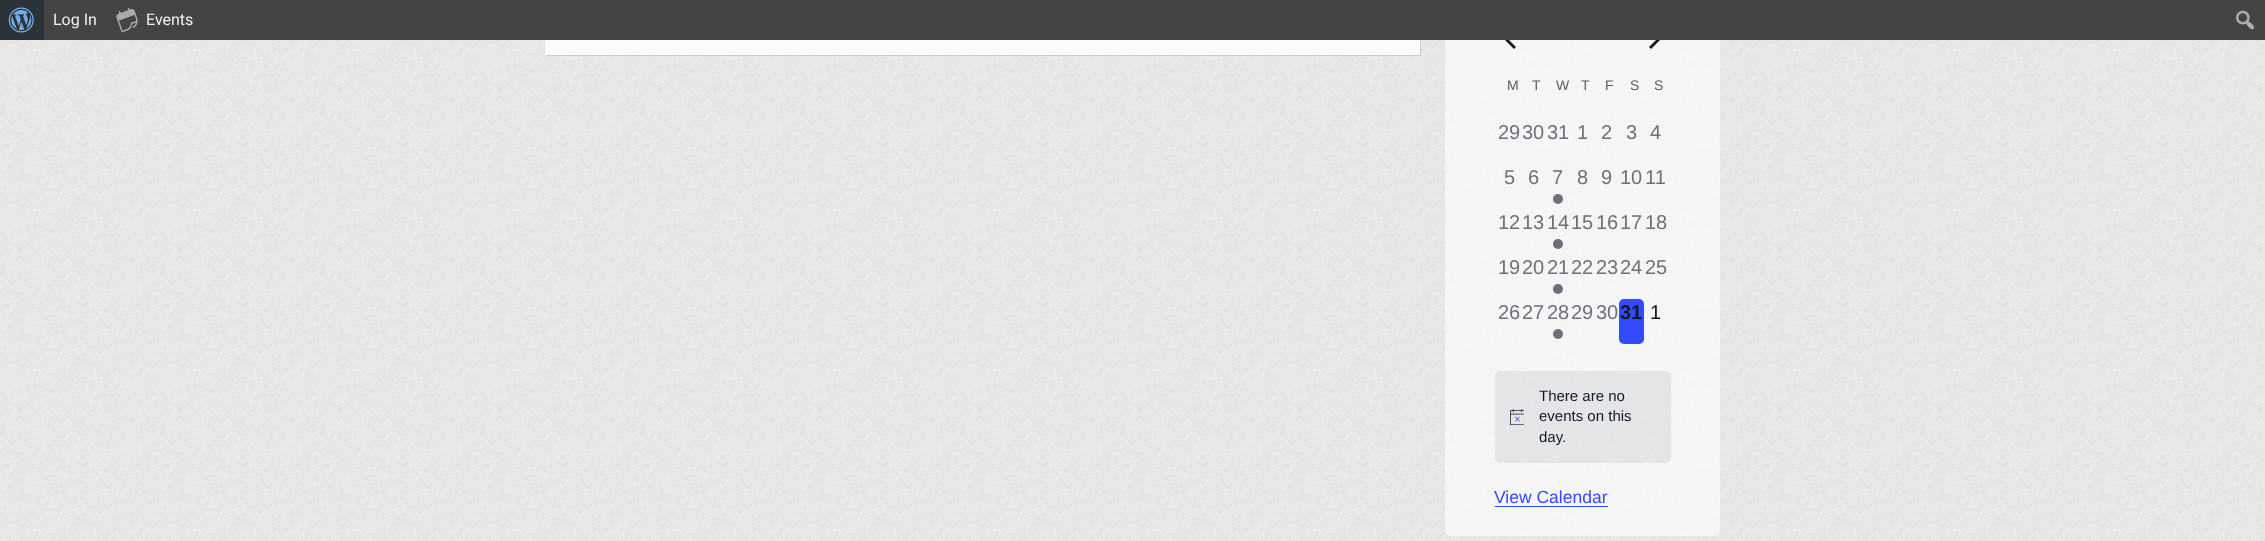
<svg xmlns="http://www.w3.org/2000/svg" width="2265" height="541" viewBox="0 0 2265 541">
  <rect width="100%" height="100%" fill="#fff"/>
  <image x="0" y="40" width="2265" height="501" href="img/4.png"/>
  <path d="M546 -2h875v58H546z" fill="#0000001a" filter="blur(0.5px)"/>
  <rect x="1445" y="-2" width="275" height="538" rx="5" fill="#ffffff99"/>
  <path d="M1516 47L1514 49L1503 38L1514 27.5L1516 29.5L1507 38Z" fill="#141827"/>
  <path d="M1649 29.5L1651 27.5L1662 38L1651 49L1649 47L1658 38Z" fill="#141827"/>
  <path d="M44 0h2221v40H44z" fill="#444"/>
  <path d="M0 0h44v40H0z" fill="#2c3338"/>
  <image x="8" y="7" width="26" height="26" href="img/1.png"/>
  <image x="116" y="8" width="22" height="25" href="img/2.png"/>
  <image x="2236" y="10" width="18" height="20" href="img/3.png"/>
  <path d="M545 40h875v15H545z" fill="#fbfbfb"/>
  <circle cx="1558" cy="199" r="5" fill="#14182799"/>
  <circle cx="1558" cy="244" r="5" fill="#14182799"/>
  <circle cx="1558" cy="289" r="5" fill="#14182799"/>
  <circle cx="1558" cy="334" r="5" fill="#14182799"/>
  <rect x="1619" y="299" width="25" height="45" rx="5" fill="#334aff"/>
  <rect x="1495" y="371" width="176" height="92" rx="5" fill="#14182712"/>
  <image x="1510" y="409" width="14" height="16" href="img/5.png"/>
  <path d="M1495 506h113v1H1495z" fill="#334aff"/>
  <g font-family="Roboto" font-size="16" fill="#f0f0f1">
    <text x="53" y="25">Log In</text>
    <text x="146" y="25">Events</text>
  </g>
  <g font-family="Liberation Sans" font-size="14" fill="#5d5d5d">
    <text x="1507" y="90">M</text>
    <text x="1532" y="90">T</text>
    <text x="1556" y="90">W</text>
    <text x="1581" y="90">T</text>
    <text x="1605" y="90">F</text>
    <text x="1630" y="90">S</text>
    <text x="1654" y="90">S</text>
  </g>
  <g font-family="Liberation Sans" font-size="20" fill="#6e717a">
    <text x="1498" y="139">29</text>
    <text x="1522" y="139">30</text>
    <text x="1547" y="139">31</text>
    <text x="1577" y="139">1</text>
    <text x="1601" y="139">2</text>
    <text x="1626" y="139">3</text>
    <text x="1650" y="139">4</text>
    <text x="1504" y="184">5</text>
    <text x="1528" y="184">6</text>
    <text x="1552" y="184">7</text>
    <text x="1577" y="184">8</text>
    <text x="1601" y="184">9</text>
    <text x="1620" y="184">10</text>
    <text x="1645" y="184">11</text>
    <text x="1498" y="229">12</text>
    <text x="1522" y="229">13</text>
    <text x="1547" y="229">14</text>
    <text x="1571" y="229">15</text>
    <text x="1596" y="229">16</text>
    <text x="1620" y="229">17</text>
    <text x="1645" y="229">18</text>
    <text x="1498" y="274">19</text>
    <text x="1522" y="274">20</text>
    <text x="1547" y="274">21</text>
    <text x="1571" y="274">22</text>
    <text x="1596" y="274">23</text>
    <text x="1620" y="274">24</text>
    <text x="1645" y="274">25</text>
    <text x="1498" y="319">26</text>
    <text x="1522" y="319">27</text>
    <text x="1547" y="319">28</text>
    <text x="1571" y="319">29</text>
    <text x="1596" y="319">30</text>
  </g>
  <text x="1620" y="319" font-family="Liberation Sans" font-size="20" font-weight="bold" fill="#141827">31</text>
  <text x="1650" y="319" font-family="Liberation Sans" font-size="20" fill="#141827">1</text>
  <g font-family="Liberation Sans" font-size="15" fill="#141827">
    <text x="1539" y="401">There are no</text>
    <text x="1539" y="421">events on this</text>
    <text x="1539" y="442">day.</text>
  </g>
  <text x="1494" y="503" font-family="Liberation Sans" font-size="17.5" fill="#334aff">View Calendar</text>
</svg>
